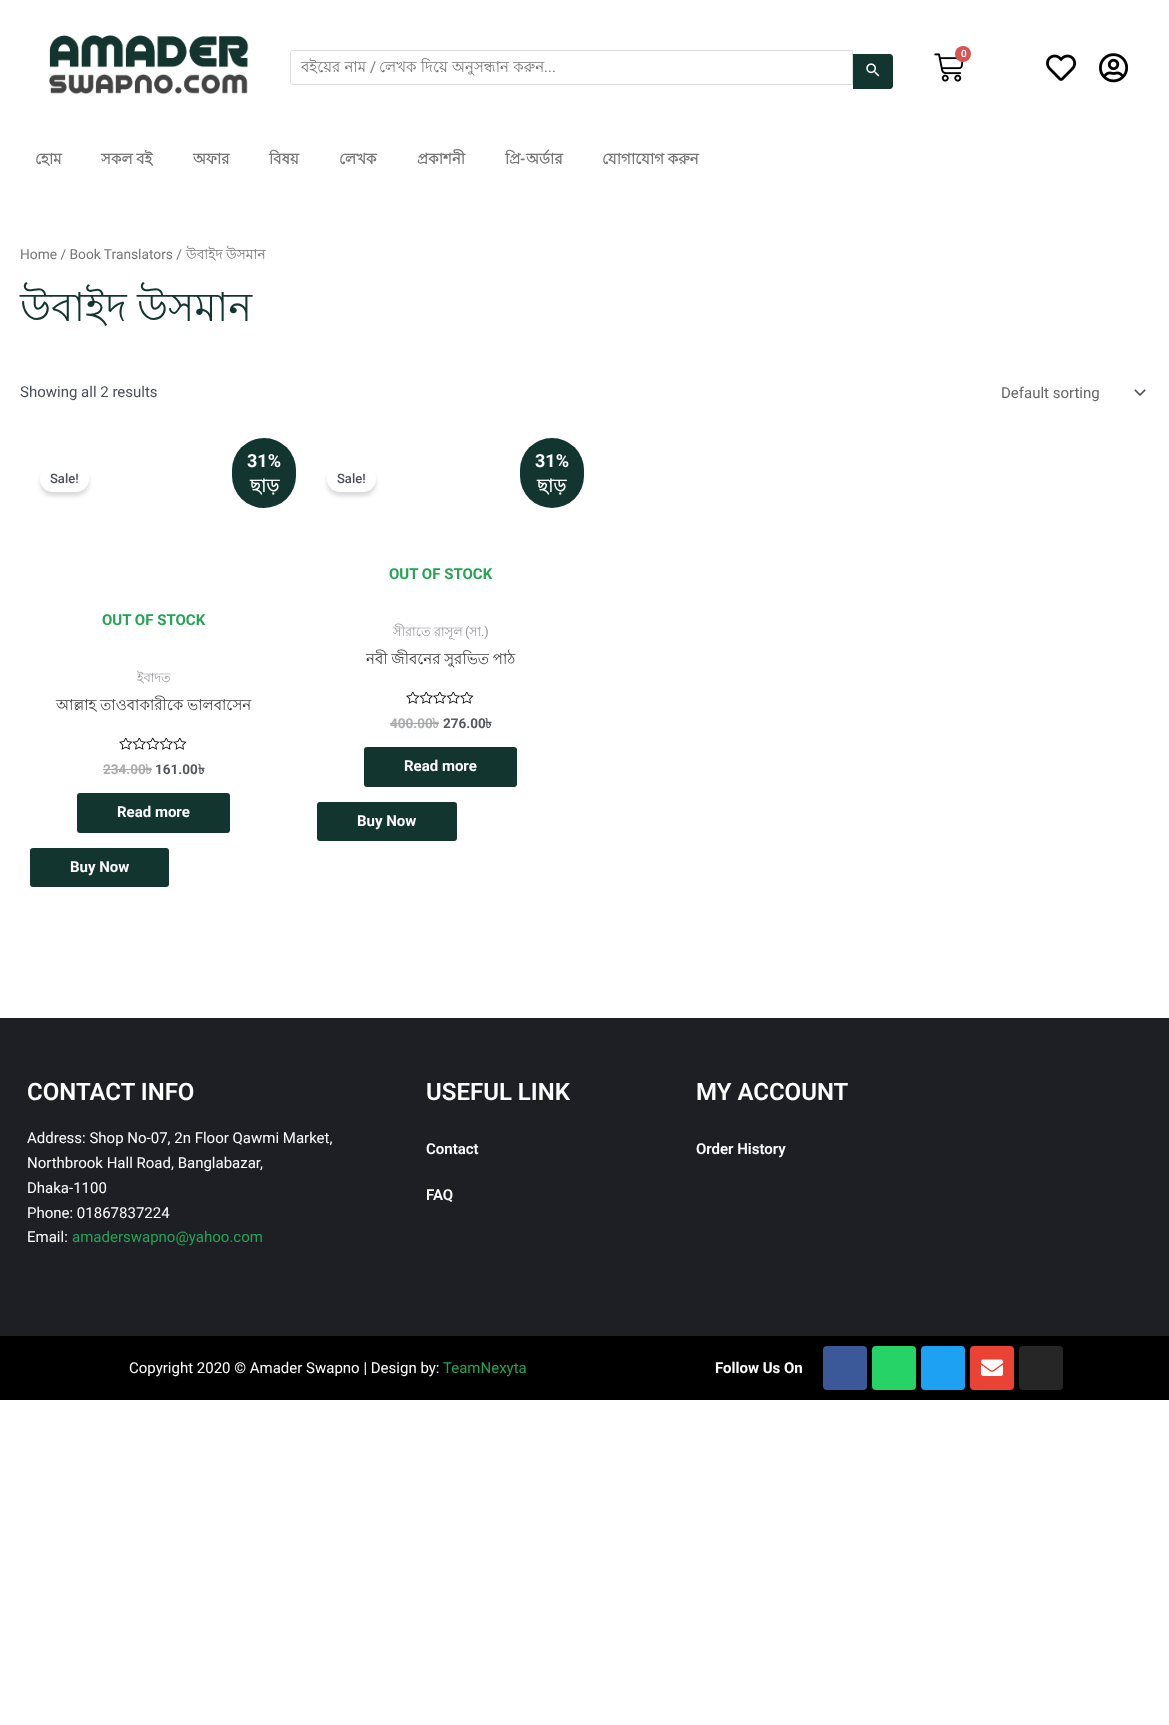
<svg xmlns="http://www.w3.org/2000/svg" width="1169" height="1725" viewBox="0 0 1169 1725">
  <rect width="100%" height="100%" fill="#fff"/>
  <image x="49" y="35" width="200" height="59" href="img/1.png"/>
  <path d="M293 50.5H852.5V84.5H293C291.5 84.5 290.5 83.5 290.5 82V53C290.5 51.5 291.5 50.5 293 50.5Z" fill="none" stroke="#ddd"/>
  <path d="M853 54H890C891.5 54 893 55.5 893 57V86C893 87.5 891.5 89 890 89H853Z" fill="#133530"/>
  <image x="866" y="63" width="14" height="14" href="img/2.png"/>
  <image x="934" y="53" width="30" height="29" href="img/3.png"/>
  <circle cx="963" cy="54" r="8" fill="#d9534f"/>
  <image x="1046" y="54" width="31" height="27" href="img/4.png"/>
  <image x="1099" y="53" width="30" height="30" href="img/5.png"/>
  <image x="1134" y="389" width="12" height="7" href="img/6.png"/>
  <rect x="40" y="470" width="49" height="26" rx="13" fill="#00000026" filter="blur(2px)"/>
  <rect x="40" y="466" width="49" height="26" rx="13" fill="#fff"/>
  <rect x="232" y="438" width="64" height="70" rx="32" fill="#133530"/>
  <image x="119" y="738" width="68" height="12" href="img/7.png"/>
  <rect x="77" y="793" width="153" height="40" rx="3" fill="#133530"/>
  <rect x="30" y="848" width="139" height="39" rx="3" fill="#133530"/>
  <rect x="327" y="470" width="49" height="26" rx="13" fill="#00000026" filter="blur(2px)"/>
  <rect x="327" y="466" width="49" height="26" rx="13" fill="#fff"/>
  <rect x="520" y="438" width="64" height="70" rx="32" fill="#133530"/>
  <image x="406" y="692" width="68" height="12" href="img/7.png"/>
  <rect x="364" y="747" width="153" height="40" rx="3" fill="#133530"/>
  <rect x="317" y="802" width="140" height="39" rx="3" fill="#133530"/>
  <path d="M0 1018h1169v318H0z" fill="#1d1f24"/>
  <path d="M0 1336h1169v64H0z" fill="#000"/>
  <rect x="823" y="1346" width="44" height="44" rx="4" fill="#3b5998"/>
  <rect x="872" y="1346" width="44" height="44" rx="4" fill="#25d366"/>
  <rect x="921" y="1346" width="44" height="44" rx="4" fill="#1da1f2"/>
  <rect x="970" y="1346" width="44" height="44" rx="4" fill="#ea4335"/>
  <image x="981" y="1359" width="22" height="17" href="img/8.png"/>
  <rect x="1019" y="1346" width="44" height="44" rx="4" fill="#262626"/>
  <text x="301" y="72" font-family="Lohit Bengali" font-size="15" fill="#757575">বইয়ের নাম</text>
  <text x="370" y="72" font-family="Roboto" font-size="15" fill="#757575">/</text>
  <text x="379" y="72" font-family="Lohit Bengali" font-size="15" fill="#757575">লেখক দিয়ে অনুসন্ধান করুন</text>
  <text x="544" y="72" font-family="Roboto" font-size="15" fill="#757575">...</text>
  <text x="961" y="57" font-family="Roboto" font-size="10" font-weight="600" fill="#fff">0</text>
  <g font-family="Lohit Bengali" font-size="15" font-weight="bold" fill="#757575">
    <text x="35" y="164">হোম</text>
    <text x="101" y="164" word-spacing="-0.5">সকল বই</text>
    <text x="193" y="164">অফার</text>
    <text x="269" y="164">বিষয়</text>
    <text x="339" y="164">লেখক</text>
    <text x="417" y="164">প্রকাশনী</text>
    <text x="505" y="164">প্রি</text>
  </g>
  <text x="520" y="164" font-family="Roboto" font-size="15" font-weight="600" fill="#757575">-</text>
  <g font-family="Lohit Bengali" font-size="15" font-weight="bold" fill="#757575">
    <text x="526" y="164">অর্ডার</text>
    <text x="602" y="164" word-spacing="-0.5">যোগাযোগ করুন</text>
  </g>
  <text x="20" y="259" font-family="Roboto" font-size="13.75" fill="#757575">Home / Book Translators /</text>
  <g font-family="Lohit Bengali" font-size="13.75" fill="#757575">
    <text x="186" y="259">উবাইদ</text>
    <text x="226" y="259">উসমান</text>
  </g>
  <text x="20" y="321" word-spacing="-1" font-family="Lohit Bengali" font-size="40" fill="#133530">উবাইদ উসমান</text>
  <text x="20" y="397" font-family="Roboto" font-size="15" fill="#4b4f58">Showing all 2 results</text>
  <text x="1001" y="398" font-family="Roboto" font-size="15" fill="#666">Default sorting</text>
  <text x="50" y="483" font-family="Roboto" font-size="13" font-weight="500" fill="#4b4f58">Sale!</text>
  <text x="247" y="467" font-family="Roboto" font-size="18" font-weight="bold" fill="#fff">31%</text>
  <text x="250" y="492" font-family="Lohit Bengali" font-size="18" font-weight="bold" fill="#fff">ছাড়</text>
  <text x="102" y="625" font-family="Roboto" font-size="15" font-weight="bold" fill="#23a455">OUT OF STOCK</text>
  <text x="137" y="682" font-family="Lohit Bengali" font-size="12.75" fill="#93959b">ইবাদত</text>
  <text x="56" y="710" word-spacing="-0.5" font-family="Lohit Bengali" font-size="15" fill="#3a3a3a">আল্লাহ তাওবাকারীকে ভালবাসেন</text>
  <text x="103" y="774" font-family="Roboto" font-size="13.5" font-weight="bold" fill="#aaacae">234.00</text>
  <path d="M103 769h42v1H103z" fill="#a5a7ac"/>
  <text x="145" y="774" font-family="Lohit Bengali" font-size="13.5" font-weight="bold" fill="#aaacae">৳</text>
  <path d="M145 769h7v1H145z" fill="#a5a7ac"/>
  <text x="155" y="774" font-family="Roboto" font-size="13.5" font-weight="bold" fill="#55595c">161.00</text>
  <text x="198" y="774" font-family="Lohit Bengali" font-size="13.5" font-weight="bold" fill="#55595c">৳</text>
  <g font-family="Roboto" font-size="15" font-weight="bold" fill="#fff">
    <text x="117" y="817">Read more</text>
    <text x="70" y="872">Buy Now</text>
  </g>
  <text x="337" y="483" font-family="Roboto" font-size="13" font-weight="500" fill="#4b4f58">Sale!</text>
  <text x="535" y="467" font-family="Roboto" font-size="18" font-weight="bold" fill="#fff">31%</text>
  <text x="537" y="492" font-family="Lohit Bengali" font-size="18" font-weight="bold" fill="#fff">ছাড়</text>
  <text x="389" y="579" font-family="Roboto" font-size="15" font-weight="bold" fill="#23a455">OUT OF STOCK</text>
  <text x="393" y="636" font-family="Lohit Bengali" font-size="12.75" fill="#93959b">সীরাতে রাসূল</text>
  <text x="465" y="636" font-family="Roboto" font-size="12.75" fill="#93959b">(</text>
  <text x="469" y="636" font-family="Lohit Bengali" font-size="12.75" fill="#93959b">সা</text>
  <text x="481" y="636" font-family="Roboto" font-size="12.75" fill="#93959b">.)</text>
  <text x="366" y="664" word-spacing="-0.5" font-family="Lohit Bengali" font-size="15" fill="#3a3a3a">নবী জীবনের সুরভিত পাঠ</text>
  <text x="390" y="728" font-family="Roboto" font-size="13.5" font-weight="bold" fill="#aaacae">400.00</text>
  <path d="M390 723h42v1H390z" fill="#a5a7ac"/>
  <text x="432" y="728" font-family="Lohit Bengali" font-size="13.5" font-weight="bold" fill="#aaacae">৳</text>
  <path d="M432 723h7v1H432z" fill="#a5a7ac"/>
  <text x="443" y="728" font-family="Roboto" font-size="13.5" font-weight="bold" fill="#55595c">276.00</text>
  <text x="485" y="728" font-family="Lohit Bengali" font-size="13.5" font-weight="bold" fill="#55595c">৳</text>
  <g font-family="Roboto" font-size="15" font-weight="bold" fill="#fff">
    <text x="404" y="771">Read more</text>
    <text x="357" y="826">Buy Now</text>
  </g>
  <text x="27" y="1100" font-family="Roboto" font-size="24" font-weight="600" fill="#fff">CONTACT INFO</text>
  <g font-family="Roboto" font-size="15" fill="#fff">
    <text x="27" y="1143">Address: Shop No-07, 2n Floor Qawmi Market,</text>
    <text x="27" y="1168">Northbrook Hall Road, Banglabazar,</text>
    <text x="27" y="1193">Dhaka-1100</text>
    <text x="27" y="1218">Phone: 01867837224</text>
    <text x="27" y="1242">Email:</text>
  </g>
  <text x="72" y="1242" font-family="Roboto" font-size="15" fill="#23a455">amaderswapno@yahoo.com</text>
  <text x="426" y="1100" font-family="Roboto" font-size="24" font-weight="600" fill="#fff">USEFUL LINK</text>
  <g font-family="Roboto" font-size="15" font-weight="600" fill="#fff">
    <text x="426" y="1154">Contact</text>
    <text x="426" y="1200">FAQ</text>
  </g>
  <text x="696" y="1100" font-family="Roboto" font-size="24" font-weight="600" fill="#fff">MY ACCOUNT</text>
  <text x="696" y="1154" font-family="Roboto" font-size="15" font-weight="600" fill="#fff">Order History</text>
  <text x="129" y="1373" font-family="Roboto" font-size="15" fill="#fff">Copyright 2020 © Amader Swapno | Design by:</text>
  <text x="443" y="1373" font-family="Roboto" font-size="15" fill="#23a455">TeamNexyta</text>
  <text x="715" y="1373" font-family="Roboto" font-size="15" font-weight="bold" fill="#fff">Follow Us On</text>
</svg>
